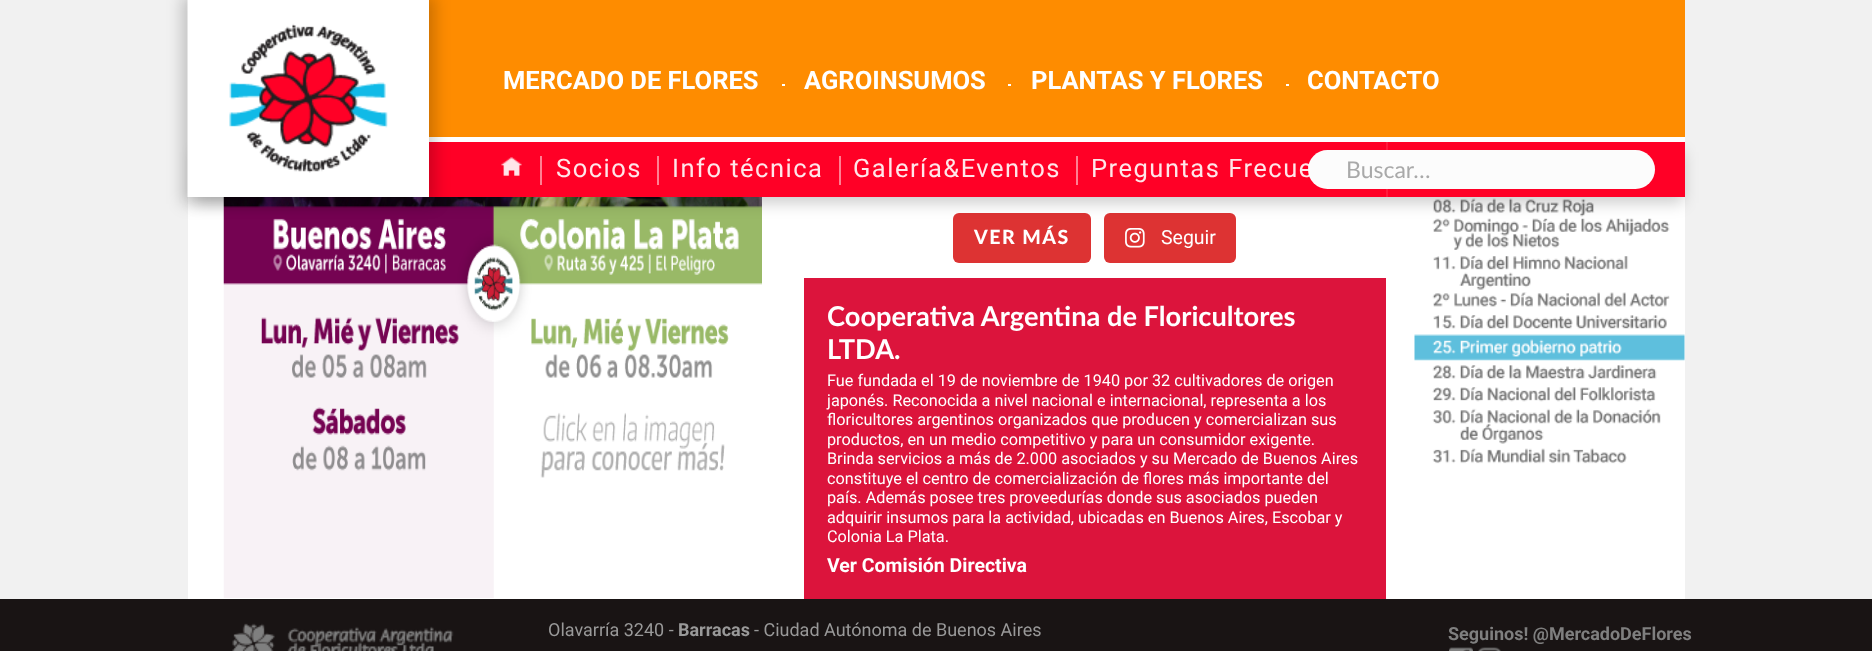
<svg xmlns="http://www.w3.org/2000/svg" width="1872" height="651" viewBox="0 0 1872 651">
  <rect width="100%" height="100%" fill="#f1f1f1"/>
  <path d="M429 0h1256v137H429z" fill="#fe8c00"/>
  <path d="M188 197h1497v402H188z" fill="#fff"/>
  <image x="223" y="197" width="539" height="401" href="img/3.png"/>
  <rect x="953" y="213" width="138" height="50" rx="6" fill="#d33"/>
  <rect x="1104" y="213" width="132" height="50" rx="6" fill="#d33"/>
  <image x="1414" y="197" width="271" height="267" href="img/5.png"/>
  <path d="M195 152h1488v51H195z" fill="#00000033" filter="blur(7.5px)"/>
  <path d="M429 142h1256v55H429z" fill="#ff0026"/>
  <path d="M429 137h1256v5H429z" fill="#fff"/>
  <path d="M182 -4h253v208H182z" fill="#00000033" filter="blur(7.5px)"/>
  <image x="187" y="0" width="242" height="197" href="img/1.png"/>
  <path d="M782 84h3v2H782z" fill="#fff"/>
  <path d="M1008 84h3v2H1008z" fill="#fff"/>
  <path d="M1286 84h3v2H1286z" fill="#fff"/>
  <image x="501" y="157" width="21" height="19" href="img/2.png"/>
  <path d="M540 156h2v29H540z" fill="#ff8093"/>
  <path d="M657 156h2v29H657z" fill="#ff8093"/>
  <path d="M839 156h2v29H839z" fill="#ff8093"/>
  <path d="M1076 156h2v29H1076z" fill="#ff8093"/>
  <path d="M1386 141h2v56H1386z" fill="#ffffff1a"/>
  <image x="1125" y="228" width="20" height="20" href="img/4.png"/>
  <path d="M804 278h582v321H804z" fill="#dc143c"/>
  <path d="M0 599h1872v52H0z" fill="#191414"/>
  <image x="232" y="623" width="222" height="28" href="img/6.png"/>
  <image x="1449" y="647" width="24" height="4" href="img/7.png"/>
  <image x="1478" y="647" width="23" height="4" href="img/8.png"/>
  <g font-family="Roboto" font-size="25.5" font-weight="bold" fill="#fff">
    <text x="503" y="89">MERCADO DE FLORES</text>
    <text x="804" y="89">AGROINSUMOS</text>
    <text x="1031" y="89">PLANTAS Y FLORES</text>
    <text x="1307" y="89">CONTACTO</text>
  </g>
  <g font-family="Roboto" font-size="25.5" letter-spacing="1.5" fill="#ffe6e9">
    <text x="556" y="177">Socios</text>
    <text x="672" y="177">Info técnica</text>
    <text x="853" y="177">Galería&amp;Eventos</text>
    <text x="1091" y="177">Preguntas Frecue</text>
  </g>
  <rect x="1308" y="150" width="347" height="39" rx="19.5" fill="#fcfcfc"/>
  <text x="1346" y="178" font-family="Lato" font-size="23" fill="#a9a9a9">Buscar…</text>
  <text x="974" y="244" font-family="Lato" font-size="19.5" font-weight="900" letter-spacing="1.5" fill="#fff">VER MÁS</text>
  <text x="1161" y="244" font-family="Roboto" font-size="19.5" fill="#fff">Seguir</text>
  <g font-family="Lato" font-size="27.25" font-weight="bold" fill="#fff">
    <text x="827" y="326">Cooperativa Argentina de Floricultores</text>
    <text x="827" y="359">LTDA.</text>
  </g>
  <g font-family="Roboto" font-size="16.25" fill="#fff">
    <text x="827" y="386">Fue fundada el 19 de noviembre de 1940 por 32 cultivadores de origen</text>
    <text x="827" y="406">japonés. Reconocida a nivel nacional e internacional, representa a los</text>
    <text x="827" y="425">floricultores argentinos organizados que producen y comercializan sus</text>
    <text x="827" y="445">productos, en un medio competitivo y para un consumidor exigente.</text>
    <text x="827" y="464">Brinda servicios a más de 2.000 asociados y su Mercado de Buenos Aires</text>
    <text x="827" y="484">constituye el centro de comercialización de flores más importante del</text>
    <text x="827" y="503">país. Además posee tres proveedurías donde sus asociados pueden</text>
    <text x="827" y="523">adquirir insumos para la actividad, ubicadas en Buenos Aires, Escobar y</text>
    <text x="827" y="542">Colonia La Plata.</text>
  </g>
  <text x="827" y="572" font-family="Roboto" font-size="19.5" font-weight="bold" fill="#fff">Ver Comisión Directiva</text>
  <text x="548" y="636" font-family="Roboto" font-size="18" fill="#999">Olavarría 3240 -</text>
  <text x="678" y="636" font-family="Roboto" font-size="18" font-weight="bold" fill="#999">Barracas</text>
  <text x="754" y="636" font-family="Roboto" font-size="18" fill="#999">- Ciudad Autónoma de Buenos Aires</text>
  <text x="1448" y="640" font-family="Roboto" font-size="18" font-weight="bold" fill="#7f7f7f">Seguinos! @MercadoDeFlores</text>
</svg>
